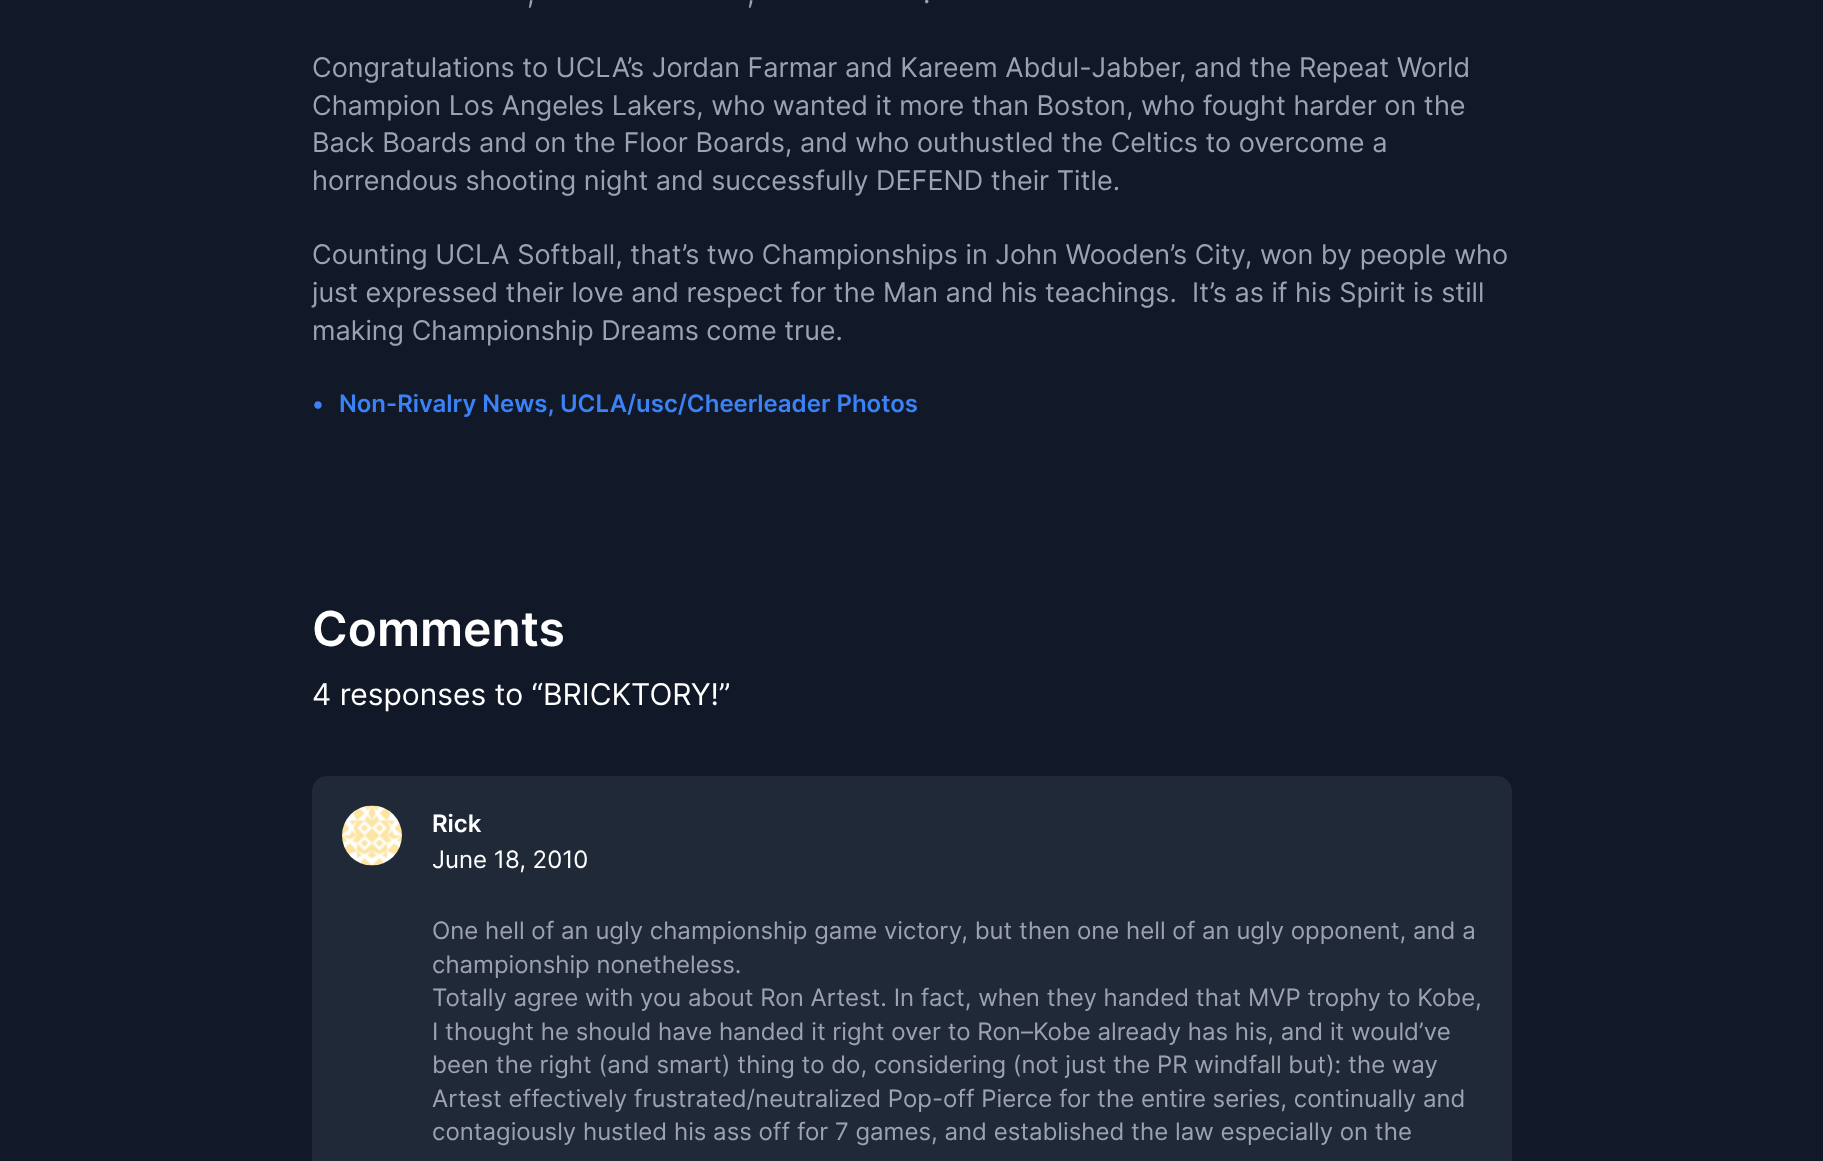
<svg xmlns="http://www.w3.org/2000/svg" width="1823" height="1161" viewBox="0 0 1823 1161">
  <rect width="100%" height="100%" fill="#111827"/>
  <rect x="312" y="776" width="1200" height="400" rx="15" fill="#1f2937"/>
  <image x="342" y="805" width="60" height="61" href="img/1.png"/>
  <g font-family="Inter" font-size="27" fill="#9ca3af">
    <text x="527" y="3">,</text>
    <text x="747" y="3">,</text>
    <text x="923" y="3">.</text>
    <text x="312" y="77">Congratulations to UCLA’s Jordan Farmar and Kareem Abdul-Jabber, and the Repeat World</text>
    <text x="312" y="115">Champion Los Angeles Lakers, who wanted it more than Boston, who fought harder on the</text>
    <text x="312" y="152">Back Boards and on the Floor Boards, and who outhustled the Celtics to overcome a</text>
    <text x="312" y="190">horrendous shooting night and successfully DEFEND their Title.</text>
    <text x="312" y="264">Counting UCLA Softball, that’s two Championships in John Wooden’s City, won by people who</text>
    <text x="312" y="302" xml:space="preserve">just expressed their love and respect for the Man and his teachings.  It’s as if his Spirit is still</text>
    <text x="312" y="340">making Championship Dreams come true.</text>
  </g>
  <g font-family="Inter" font-size="24" font-weight="600" fill="#3b82f6">
    <text x="312" y="412">•</text>
    <text x="339" y="412">Non-Rivalry News, UCLA/usc/Cheerleader Photos</text>
  </g>
  <text x="312" y="646" font-family="Inter" font-size="48" font-weight="600" fill="#fff">Comments</text>
  <text x="312" y="705" font-family="Inter" font-size="30" fill="#fff">4 responses to “BRICKTORY!”</text>
  <text x="432" y="832" font-family="Inter" font-size="24" font-weight="600" fill="#fff">Rick</text>
  <text x="432" y="868" font-family="Inter" font-size="24" fill="#fff">June 18, 2010</text>
  <g font-family="Inter" font-size="24" fill="#9ca3af">
    <text x="432" y="939">One hell of an ugly championship game victory, but then one hell of an ugly opponent, and a</text>
    <text x="432" y="973">championship nonetheless.</text>
    <text x="432" y="1006">Totally agree with you about Ron Artest. In fact, when they handed that MVP trophy to Kobe,</text>
    <text x="432" y="1040">I thought he should have handed it right over to Ron–Kobe already has his, and it would’ve</text>
    <text x="432" y="1073">been the right (and smart) thing to do, considering (not just the PR windfall but): the way</text>
    <text x="432" y="1107">Artest effectively frustrated/neutralized Pop-off Pierce for the entire series, continually and</text>
    <text x="432" y="1140">contagiously hustled his ass off for 7 games, and established the law especially on the</text>
  </g>
</svg>
